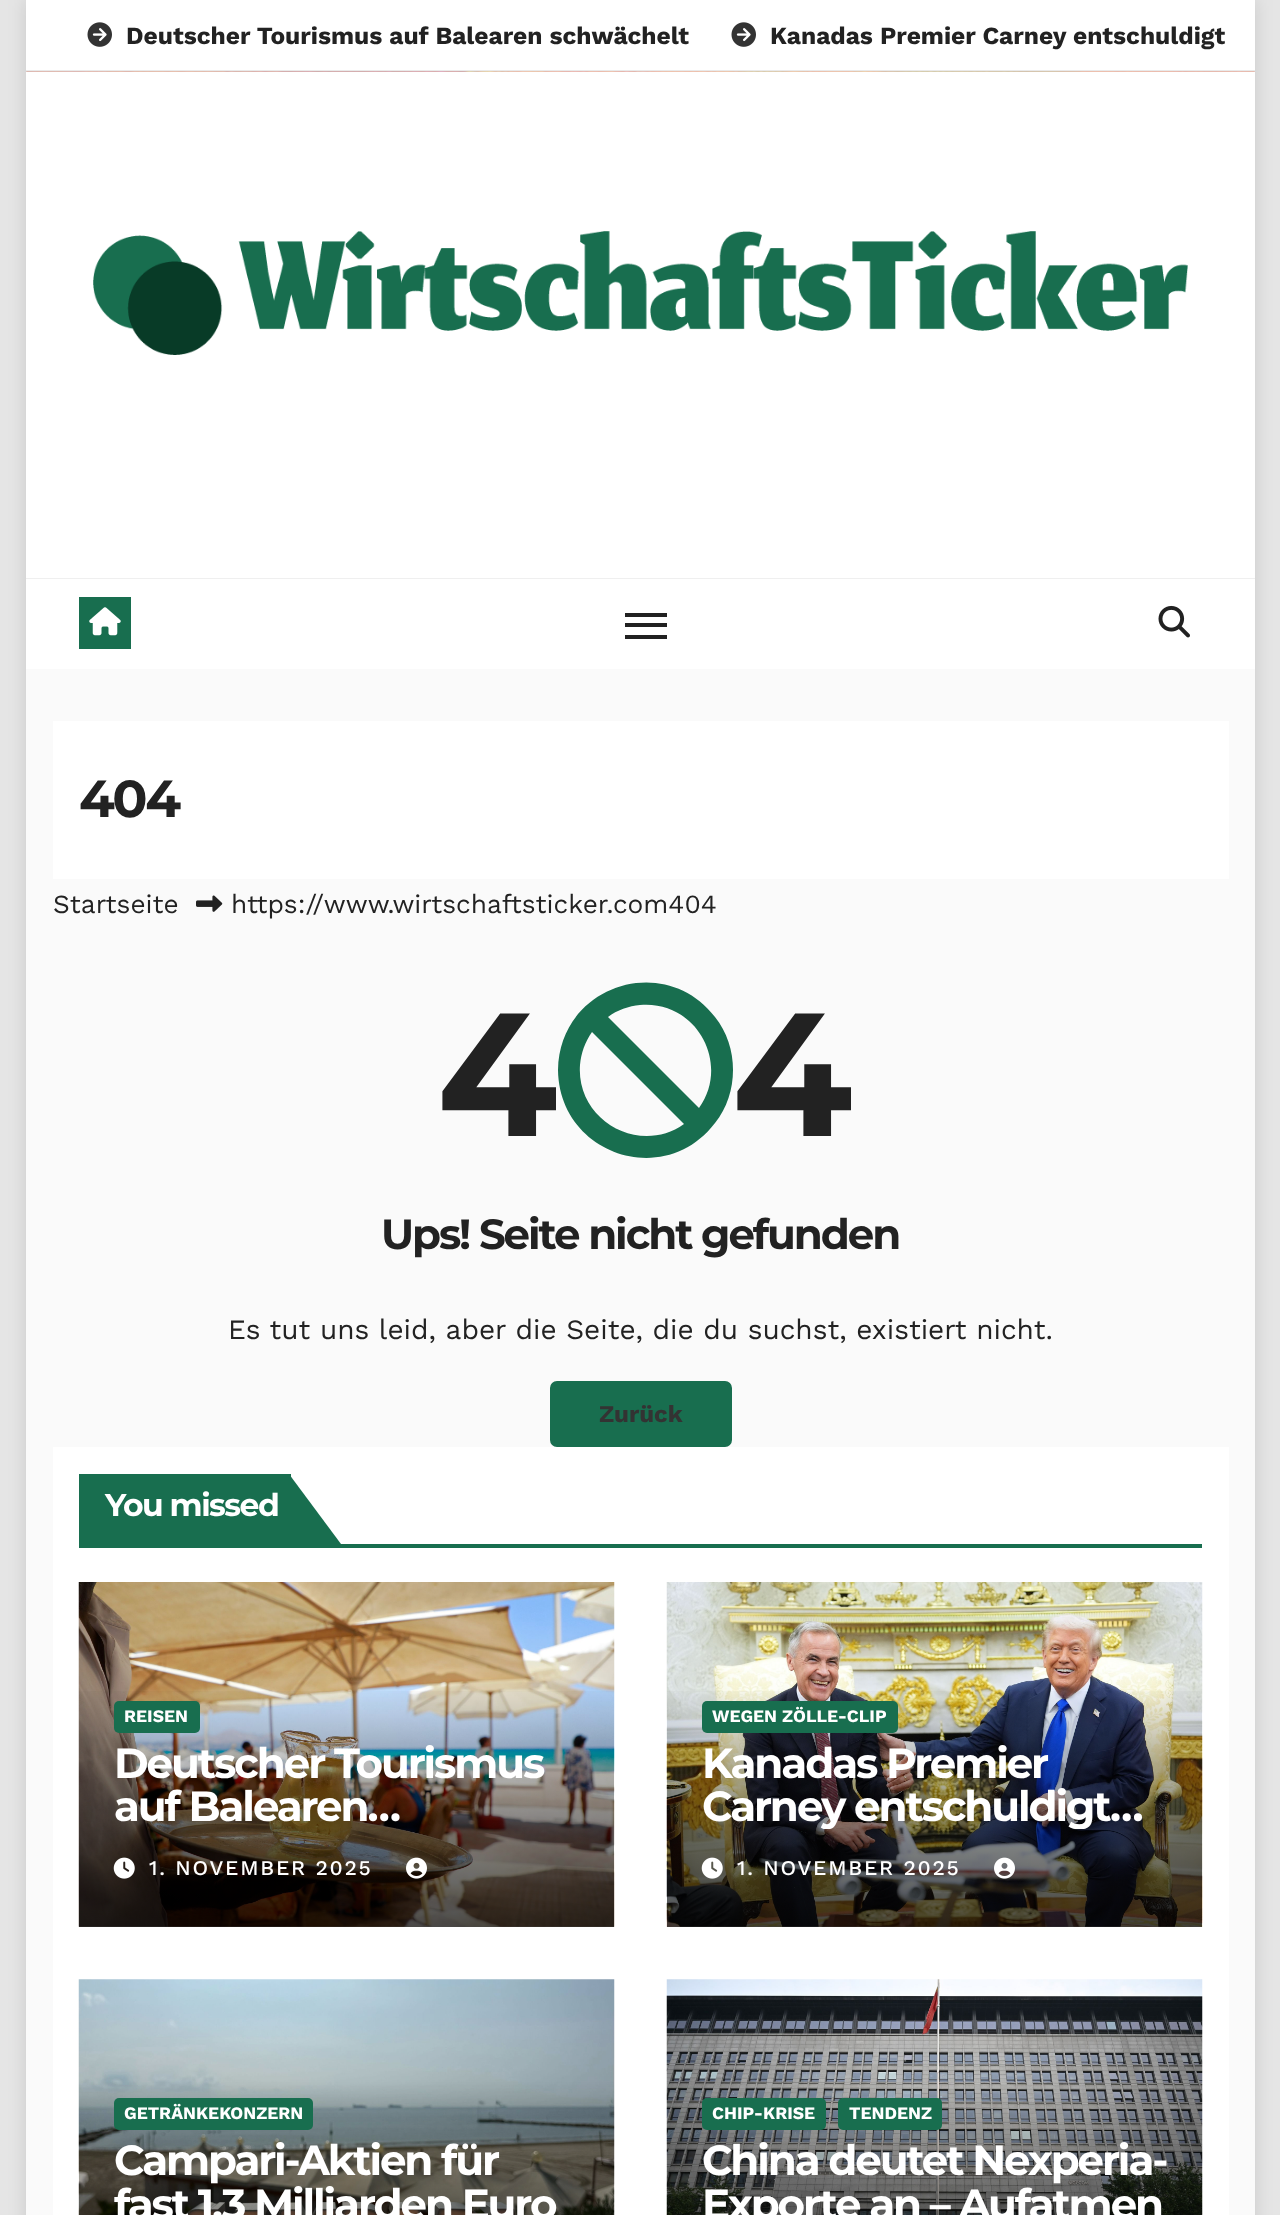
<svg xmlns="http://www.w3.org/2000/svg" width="1280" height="2215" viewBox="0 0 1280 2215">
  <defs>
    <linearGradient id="g1" gradientUnits="userSpaceOnUse" x1="347" y1="1684" x2="347" y2="1927"><stop offset="0" stop-color="#000" stop-opacity="0"/><stop offset="0.5" stop-color="#000" stop-opacity="0.4"/><stop offset="1" stop-color="#000" stop-opacity="0.7"/></linearGradient>
    <linearGradient id="g2" gradientUnits="userSpaceOnUse" x1="935" y1="1684" x2="935" y2="1927"><stop offset="0" stop-color="#000" stop-opacity="0"/><stop offset="0.5" stop-color="#000" stop-opacity="0.4"/><stop offset="1" stop-color="#000" stop-opacity="0.7"/></linearGradient>
    <clipPath id="clip1"><path d="M702 1741h465v88H702z"/></clipPath>
  </defs>
  <rect width="100%" height="100%" fill="#e5e5e5"/>
  <path d="M26 0h1229v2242H26z" fill="#0000001f" filter="blur(9px)"/>
  <path d="M26 669h1229v1546H26z" fill="#fafafa"/>
  <path d="M26 0h1229v70H26z" fill="#fff"/>
  <path d="M26 70h1229v2H26z" fill="#e9e9e9"/>
  <image x="87" y="22" width="25" height="25" href="img/1.png"/>
  <image x="731" y="22" width="25" height="25" href="img/1.png"/>
  <image x="26" y="71" width="1229" height="1" href="img/2.png"/>
  <path d="M26 72h1229v506H26z" fill="#fff"/>
  <path d="M26 578h1229v1H26z" fill="#efefef"/>
  <image x="93" y="231" width="1095" height="124" href="img/3.png"/>
  <path d="M26 579h1229v90H26z" fill="#fff"/>
  <path d="M79 597h52v52H79z" fill="#186e4f"/>
  <image x="89" y="607" width="32" height="29" href="img/4.png"/>
  <path d="M625 613h42v4H625z" fill="#212121"/>
  <path d="M625 623h42v4H625z" fill="#212121"/>
  <path d="M625 635h42v4H625z" fill="#212121"/>
  <image x="1158" y="605" width="32" height="33" href="img/5.png"/>
  <path d="M53 721h1176v158H53z" fill="#fff"/>
  <image x="196" y="895" width="27" height="17" href="img/6.png"/>
  <path d="M684 1124L592 1032C585 1042 581 1053 580 1065C576 1120 639 1156 684 1124ZM699 1108C731 1063 696 1000 640 1005C629 1006 617 1010 608 1017ZM558 1070C559 986 664 951 715 1017C727 1032 733 1051 733 1070C733 1089 727 1108 715 1123C664 1190 559 1154 558 1070Z" fill="#186e4f"/>
  <rect x="552" y="1383" width="178" height="62" rx="5" fill="#186e4f" stroke="#186e4f" stroke-width="4"/>
  <path d="M53 1447h1176v768H53z" fill="#fff"/>
  <path d="M79 1544h1123v4H79z" fill="#186e4f"/>
  <path d="M79 1474h212v70H79z" fill="#186e4f"/>
  <path d="M289 1474V1544H341Z" fill="#186e4f"/>
  <image x="78" y="1582" width="537" height="345" href="img/7.png"/>
  <path d="M79 1691h535v236H79z" fill="url(#g1)"/>
  <rect x="114" y="1701" width="86" height="32" rx="5" fill="#186e4f"/>
  <image x="113" y="1857" width="22" height="22" href="img/8.png"/>
  <image x="406" y="1857" width="21" height="22" href="img/9.png"/>
  <image x="666" y="1582" width="537" height="345" href="img/10.png"/>
  <path d="M667 1691h535v236H667z" fill="url(#g2)"/>
  <rect x="702" y="1701" width="196" height="32" rx="5" fill="#186e4f"/>
  <image x="701" y="1857" width="22" height="22" href="img/11.png"/>
  <image x="994" y="1857" width="21" height="22" href="img/12.png"/>
  <image x="78" y="1979" width="537" height="236" href="img/13.png"/>
  <rect x="114" y="2098" width="199" height="32" rx="5" fill="#186e4f"/>
  <image x="666" y="1979" width="537" height="236" href="img/14.png"/>
  <rect x="702" y="2098" width="124" height="32" rx="5" fill="#186e4f"/>
  <rect x="838" y="2098" width="104" height="32" rx="5" fill="#186e4f"/>
  <g font-family="Work Sans" font-size="24.5" font-weight="bold" fill="#222">
    <text x="126" y="44">Deutscher Tourismus auf Balearen schwächelt</text>
    <text x="770" y="44">Kanadas Premier Carney entschuldigt</text>
  </g>
  <text x="79" y="817" font-family="Montserrat" font-size="52" font-weight="bold" letter-spacing="-2.5" fill="#222">404</text>
  <g font-family="Work Sans" font-size="26.25" fill="#222">
    <text x="53" y="913">Startseite</text>
    <text x="231" y="913">https://www.wirtschaftsticker.com404</text>
  </g>
  <g font-family="Montserrat" font-size="175" font-weight="bold" letter-spacing="-9" fill="#222">
    <text x="437" y="1136">4</text>
    <text x="732" y="1136">4</text>
  </g>
  <text x="381" y="1249" font-family="Montserrat" font-size="42" font-weight="bold" letter-spacing="-2.1" fill="#222">Ups! Seite nicht gefunden</text>
  <text x="228" y="1339" font-family="Work Sans" font-size="28" fill="#222">Es tut uns leid, aber die Seite, die du suchst, existiert nicht.</text>
  <text x="599" y="1422" font-family="Work Sans" font-size="24" font-weight="bold" fill="#333">Zurück</text>
  <text x="105" y="1516" font-family="Montserrat" font-size="31.5" font-weight="bold" letter-spacing="-1.5" fill="#fff">You missed</text>
  <text x="124" y="1722" font-family="Work Sans" font-size="17.5" font-weight="bold" fill="#fff">REISEN</text>
  <g font-family="Montserrat" font-size="42" font-weight="bold" letter-spacing="-2.1" fill="#fff">
    <text x="114" y="1778">Deutscher Tourismus</text>
    <text x="114" y="1821">auf Balearen…</text>
  </g>
  <text x="149" y="1875" font-family="Work Sans" font-size="21" font-weight="500" letter-spacing="1.75" fill="#fff">1. NOVEMBER 2025</text>
  <text x="712" y="1722" font-family="Work Sans" font-size="17.5" font-weight="bold" fill="#fff">WEGEN ZÖLLE-CLIP</text>
  <text x="702" y="1778" font-family="Montserrat" font-size="42" font-weight="bold" letter-spacing="-2.1" fill="#fff">Kanadas Premier</text>
  <g clip-path="url(#clip1)">
    <text x="702" y="1821" font-family="Montserrat" font-size="42" font-weight="bold" letter-spacing="-2.1" fill="#fff">Carney entschuldigt…</text>
  </g>
  <text x="737" y="1875" font-family="Work Sans" font-size="21" font-weight="500" letter-spacing="1.75" fill="#fff">1. NOVEMBER 2025</text>
  <text x="124" y="2119" font-family="Work Sans" font-size="17.5" font-weight="bold" fill="#fff">GETRÄNKEKONZERN</text>
  <g font-family="Montserrat" font-size="42" font-weight="bold" letter-spacing="-2.1" fill="#fff">
    <text x="114" y="2175">Campari-Aktien für</text>
    <text x="114" y="2219">fast 1,3 Milliarden Euro</text>
  </g>
  <g font-family="Work Sans" font-size="17.5" font-weight="bold" fill="#fff">
    <text x="712" y="2119">CHIP-KRISE</text>
    <text x="849" y="2119">TENDENZ</text>
  </g>
  <g font-family="Montserrat" font-size="42" font-weight="bold" letter-spacing="-2.1" fill="#fff">
    <text x="702" y="2175">China deutet Nexperia-</text>
    <text x="702" y="2219">Exporte an – Aufatmen</text>
  </g>
</svg>
